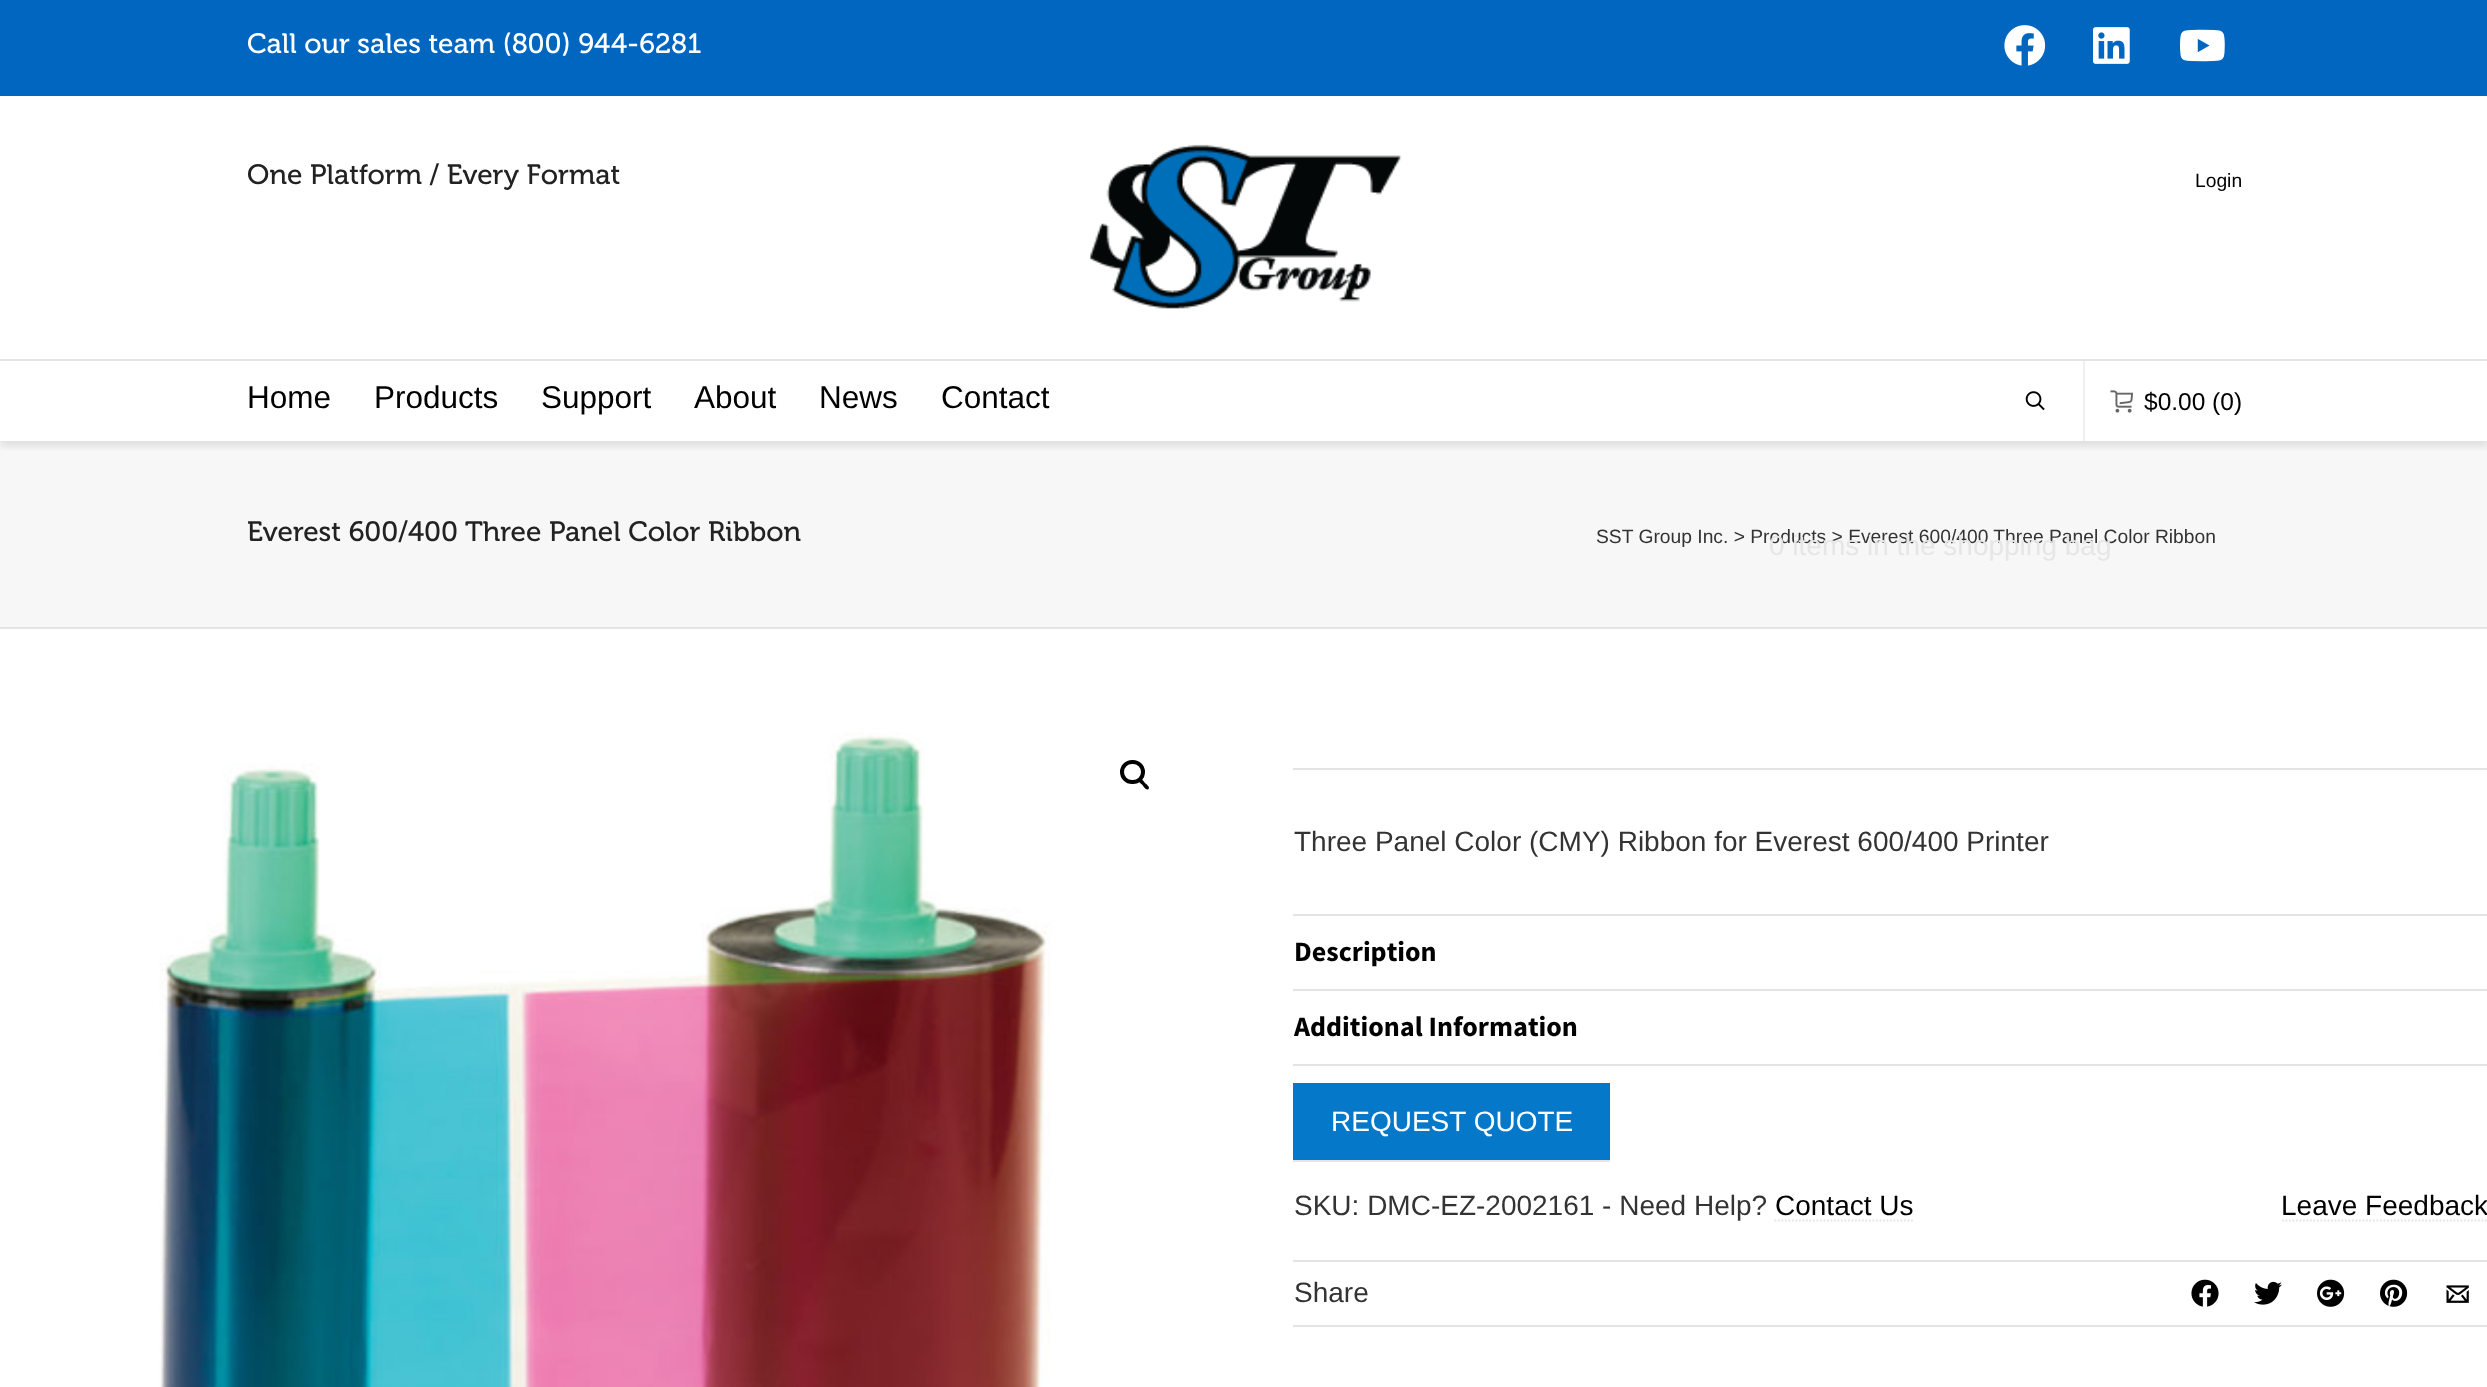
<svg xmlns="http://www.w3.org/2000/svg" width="2487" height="1387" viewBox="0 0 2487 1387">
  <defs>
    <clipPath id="clip1"><path d="M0 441h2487v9H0z"/></clipPath>
  </defs>
  <rect width="100%" height="100%" fill="#fff"/>
  <path d="M0 441h2487v186H0z" fill="#f7f7f7"/>
  <g clip-path="url(#clip1)">
    <path d="M0 102h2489v344H0z" fill="#0000001a" filter="blur(4.5px)"/>
  </g>
  <path d="M0 0h2487v96H0z" fill="#0066bf"/>
  <image x="2004" y="25" width="42" height="41" href="img/1.png"/>
  <image x="2093" y="27" width="37" height="37" href="img/2.png"/>
  <image x="2180" y="29" width="45" height="33" href="img/3.png"/>
  <image x="1089" y="144" width="313" height="165" href="img/4.png"/>
  <path d="M0 359h2487v2H0z" fill="#e4e4e4"/>
  <path d="M2083 361h2v80H2083z" fill="#f0f0f0"/>
  <image x="2110" y="390" width="23" height="23" href="img/5.png"/>
  <image x="2025" y="391" width="20" height="20" href="img/6.png"/>
  <path d="M0 627h2487v2H0z" fill="#e4e4e4"/>
  <image x="159" y="732" width="892" height="655" href="img/7.png"/>
  <rect x="1122" y="762" width="21" height="20" rx="10" fill="none" stroke="#000" stroke-width="4"/>
  <path d="M1139 779C1140.5 777 1144 781.5 1145 783C1146 784 1150.5 787 1148.5 789C1146.5 791 1143.5 786.5 1142.5 785C1141.5 784 1137 781 1139 779Z" fill="#000"/>
  <path d="M1293 768h1194v2H1293z" fill="#e4e4e4"/>
  <path d="M1293 914h1194v2H1293z" fill="#e4e4e4"/>
  <path d="M1293 989h1194v2H1293z" fill="#e4e4e4"/>
  <path d="M1293 1064h1194v2H1293z" fill="#e4e4e4"/>
  <path d="M1293 1085V1162H1610V1160H1293Z" fill="#e6e6e6"/>
  <path d="M1293 1083h317v77H1293z" fill="#0678ca"/>
  <path d="M1774.5 1220.5H1913" fill="none" stroke="#e4e4e4" stroke-width="1.8" stroke-dasharray="1.75 1.75"/>
  <path d="M2282 1220.5H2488.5" fill="none" stroke="#e4e4e4" stroke-width="1.8" stroke-dasharray="1.75 1.75"/>
  <path d="M1293 1260h1194v2H1293z" fill="#e4e4e4"/>
  <path d="M1293 1325h1194v2H1293z" fill="#e4e4e4"/>
  <image x="2191" y="1279" width="28" height="28" href="img/8.png"/>
  <image x="2254" y="1281" width="28" height="24" href="img/9.png"/>
  <image x="2317" y="1279" width="28" height="28" href="img/10.png"/>
  <image x="2380" y="1279" width="28" height="28" href="img/11.png"/>
  <image x="2446" y="1285" width="23" height="18" href="img/12.png"/>
  <text x="247" y="53" font-family="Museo" font-size="28" fill="#fff">Call our sales team (800) 944-6281</text>
  <text x="247" y="184" font-family="Museo" font-size="28" fill="#222">One Platform / Every Format</text>
  <text x="2195" y="187" font-family="Liberation Sans" font-size="19.25" fill="#000">Login</text>
  <g font-family="Liberation Sans" font-size="31.5" fill="#000">
    <text x="247" y="408">Home</text>
    <text x="374" y="408">Products</text>
    <text x="541" y="408">Support</text>
    <text x="694" y="408">About</text>
    <text x="819" y="408">News</text>
    <text x="941" y="408">Contact</text>
  </g>
  <text x="2144" y="410" font-family="Liberation Sans" font-size="24.5" fill="#000">$0.00 (0)</text>
  <text x="247" y="541" font-family="Museo" font-size="28" fill="#222">Everest 600/400 Three Panel Color Ribbon</text>
  <text x="1596" y="543" font-family="Liberation Sans" font-size="19.25" fill="#333">SST Group Inc. &gt; Products &gt; Everest 600/400 Three Panel Color Ribbon</text>
  <text x="1769" y="555" font-family="Liberation Sans" font-size="28" fill="#e6e6e6">0 items in the shopping bag</text>
  <text x="1294" y="851" font-family="Liberation Sans" font-size="28" fill="#333">Three Panel Color (CMY) Ribbon for Everest 600/400 Printer</text>
  <g font-family="Source Sans Pro" font-size="28" font-weight="bold" fill="#000">
    <text x="1294" y="961">Description</text>
    <text x="1294" y="1036">Additional Information</text>
  </g>
  <text x="1331" y="1131" font-family="Liberation Sans" font-size="28" fill="#fff">REQUEST QUOTE</text>
  <text x="1294" y="1215" font-family="Liberation Sans" font-size="28" fill="#333">SKU: DMC-EZ-2002161 - Need Help?</text>
  <g font-family="Liberation Sans" font-size="28" fill="#000">
    <text x="1775" y="1215">Contact Us</text>
    <text x="2281" y="1215">Leave Feedback</text>
  </g>
  <text x="1294" y="1302" font-family="Liberation Sans" font-size="28" fill="#333">Share</text>
</svg>
